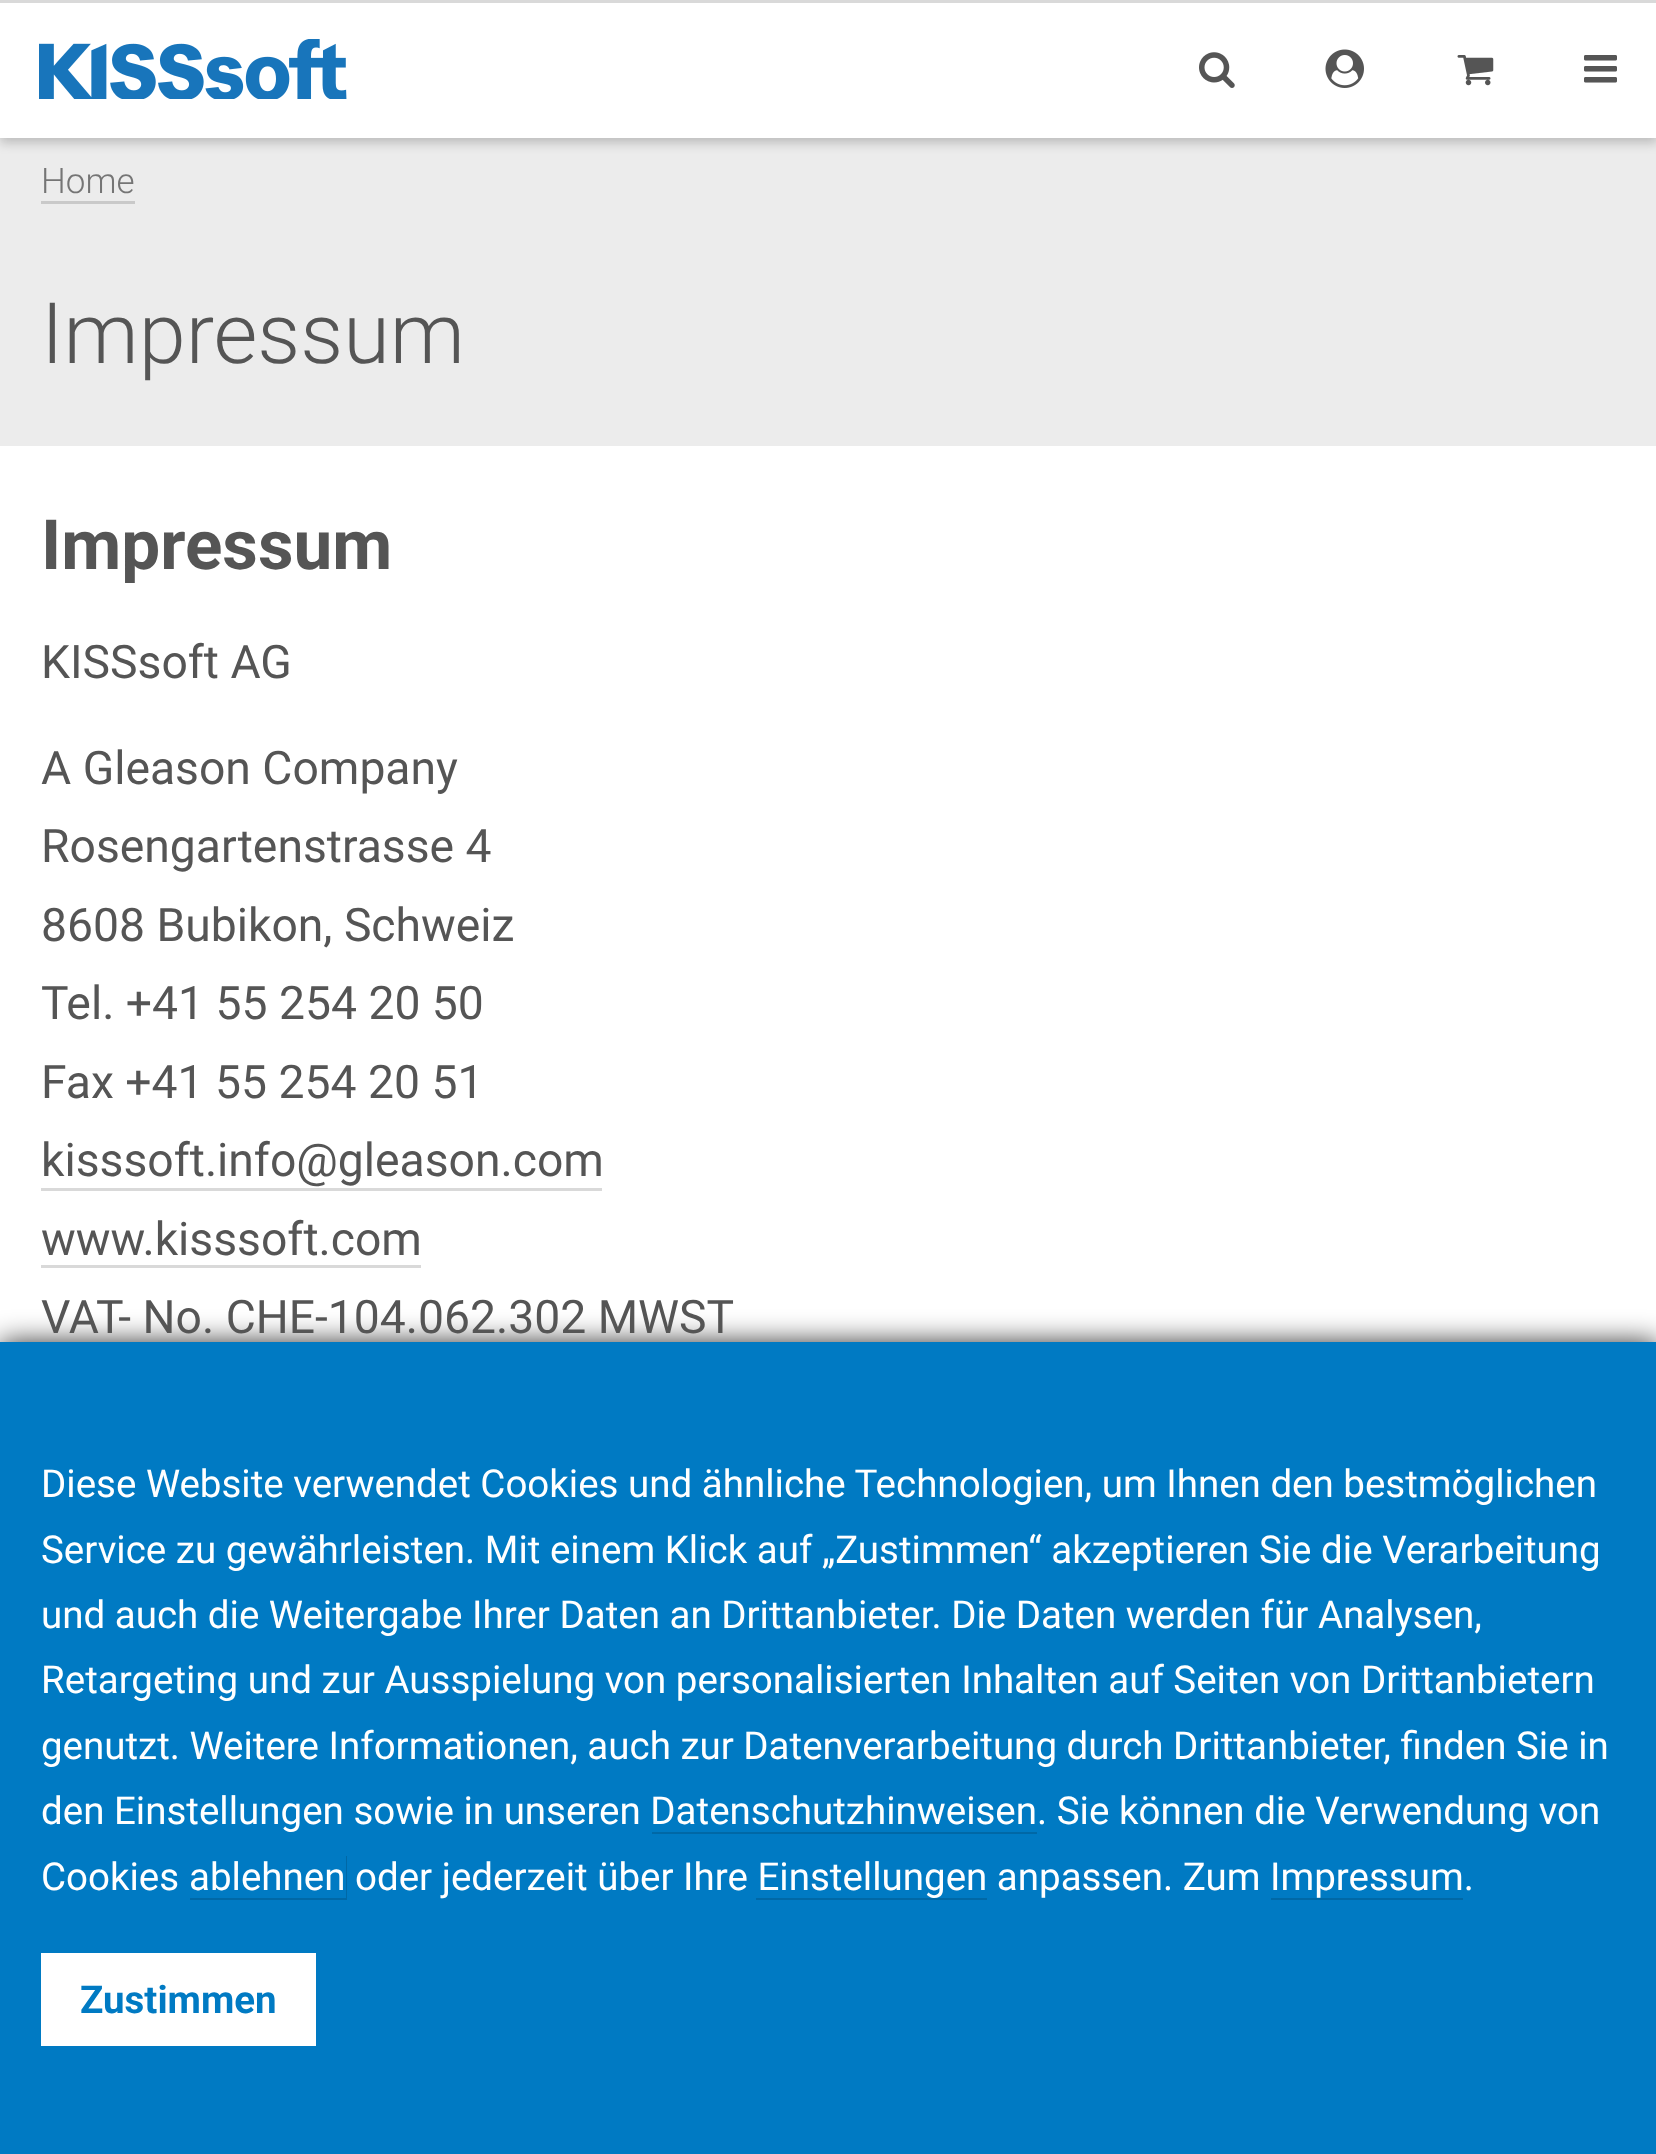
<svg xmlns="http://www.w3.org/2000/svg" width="1656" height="2154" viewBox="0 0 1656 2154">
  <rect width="100%" height="100%" fill="#fff"/>
  <path d="M0 138h1656v308H0z" fill="#ececec"/>
  <path d="M0 6h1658v137H0z" fill="#00000033" filter="blur(5.5px)"/>
  <path d="M0 0h1656v3H0z" fill="#d9d9d9"/>
  <path d="M0 3h1656v135H0z" fill="#fff"/>
  <image x="39" y="39" width="308" height="60" href="img/1.png"/>
  <image x="1199" y="52" width="36" height="36" href="img/2.png"/>
  <image x="1325" y="49" width="39" height="39" href="img/3.png"/>
  <image x="1457" y="55" width="37" height="31" href="img/4.png"/>
  <image x="1584" y="55" width="33" height="28" href="img/5.png"/>
  <path d="M41 162V204H135V162V201H41Z" fill="#c9c9c9"/>
  <path d="M41 1136V1191H602V1188H41Z" fill="#d9d9d9"/>
  <path d="M41 1213V1268H421V1213V1265H41Z" fill="#d9d9d9"/>
  <path d="M0 1342h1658v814H0z" fill="#000000cc" filter="blur(14px)"/>
  <path d="M0 1342h1656v812H0z" fill="#007ac3"/>
  <path d="M652 1832V1834H1037V1790V1832Z" fill="#0068a6"/>
  <path d="M190 1898V1900H347V1856H346V1898Z" fill="#0068a6"/>
  <path d="M41 1953h275v93H41z" fill="#fff"/>
  <text x="41" y="193" font-family="Roboto" font-size="35" font-weight="300" fill="#757575">Home</text>
  <text x="41" y="363" font-family="Roboto" font-size="84.75" font-weight="300" fill="#555">Impressum</text>
  <text x="41" y="569" font-family="Roboto" font-size="69.25" font-weight="bold" fill="#555">Impressum</text>
  <g font-family="Roboto" font-size="46.25" fill="#555">
    <text x="41" y="678">KISSsoft AG</text>
    <text x="41" y="784">A Gleason Company</text>
    <text x="41" y="862">Rosengartenstrasse 4</text>
    <text x="41" y="941">8608 Bubikon, Schweiz</text>
    <text x="41" y="1019">Tel. +41 55 254 20 50</text>
    <text x="41" y="1098">Fax +41 55 254 20 51</text>
    <text x="41" y="1176">kisssoft.info@gleason.com</text>
    <text x="41" y="1255">www.kisssoft.com</text>
    <text x="41" y="1333">VAT- No. CHE-104.062.302 MWST</text>
  </g>
  <g font-family="Roboto" font-size="38.5" fill="#fff">
    <text x="41" y="1497">Diese Website verwendet Cookies und ähnliche Technologien, um Ihnen den bestmöglichen</text>
    <text x="41" y="1563">Service zu gewährleisten. Mit einem Klick auf „Zustimmen“ akzeptieren Sie die Verarbeitung</text>
    <text x="41" y="1628">und auch die Weitergabe Ihrer Daten an Drittanbieter. Die Daten werden für Analysen,</text>
    <text x="41" y="1693">Retargeting und zur Ausspielung von personalisierten Inhalten auf Seiten von Drittanbietern</text>
    <text x="41" y="1759">genutzt. Weitere Informationen, auch zur Datenverarbeitung durch Drittanbieter, finden Sie in</text>
    <text x="41" y="1824">den Einstellungen sowie in unseren Datenschutzhinweisen. Sie können die Verwendung von</text>
    <text x="41" y="1890">Cookies</text>
    <text x="189" y="1890">ablehnen oder jederzeit über Ihre Einstellungen anpassen. Zum Impressum.</text>
  </g>
  <path d="M756 1856V1900H987V1898H756Z" fill="#0068a6"/>
  <path d="M1271 1898h192v2H1271z" fill="#0068a6"/>
  <text x="80" y="2013" font-family="Roboto" font-size="38.5" font-weight="bold" fill="#007ac3">Zustimmen</text>
</svg>
